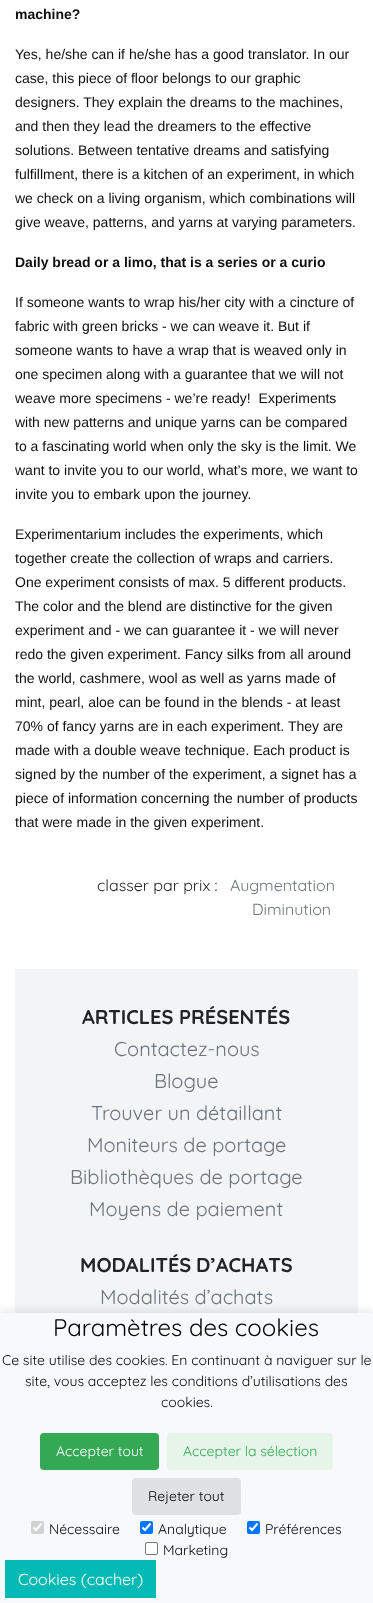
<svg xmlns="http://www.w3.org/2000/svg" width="373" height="1603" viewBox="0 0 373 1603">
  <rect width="100%" height="100%" fill="#fff"/>
  <path d="M15 969h343v344H15z" fill="#f2f4f5"/>
  <path d="M0 1311h373v290H0z" fill="#0000001a" filter="blur(5px)"/>
  <path d="M0 1313h373v290H0z" fill="#f8f9fa"/>
  <rect x="40" y="1433" width="119" height="37" rx="4" fill="#34a853"/>
  <rect x="167" y="1433" width="166" height="37" rx="4" fill="#e6f4ea"/>
  <rect x="132" y="1478" width="109" height="37" rx="4" fill="#dfe1e5"/>
  <rect x="31" y="1521" width="13" height="13" rx="2" fill="#d1d2d2"/>
  <path d="M33.5 1527.5L36 1530L41.5 1523.5" fill="none" stroke="#fff" stroke-width="2.1"/>
  <rect x="140" y="1521" width="13" height="13" rx="2" fill="#0075ff"/>
  <path d="M142.5 1527.5L145 1530L150.5 1523.5" fill="none" stroke="#fff" stroke-width="2.1"/>
  <rect x="247" y="1521" width="13" height="13" rx="2" fill="#0075ff"/>
  <path d="M249.5 1527.5L252 1530L257.5 1523.5" fill="none" stroke="#fff" stroke-width="2.1"/>
  <rect x="145.5" y="1542.5" width="12" height="12" rx="1.5" fill="#fff" stroke="#767676"/>
  <path d="M5 1560h151v38H5z" fill="#05bab4"/>
  <text x="15" y="19" font-family="Liberation Sans" font-size="14" font-weight="bold" fill="#0f0f0f">machine?</text>
  <g font-family="Liberation Sans" font-size="14" fill="#0f0f0f">
    <text x="15" y="59">Yes, he/she can if he/she has a good translator. In our</text>
    <text x="15" y="83">case, this piece of floor belongs to our graphic</text>
    <text x="15" y="107">designers. They explain the dreams to the machines,</text>
    <text x="15" y="131">and then they lead the dreamers to the effective</text>
    <text x="15" y="155">solutions. Between tentative dreams and satisfying</text>
    <text x="15" y="179">fulfillment, there is a kitchen of an experiment, in which</text>
    <text x="15" y="203">we check on a living organism, which combinations will</text>
    <text x="15" y="227">give weave, patterns, and yarns at varying parameters.</text>
  </g>
  <text x="15" y="267" font-family="Liberation Sans" font-size="14" font-weight="bold" fill="#0f0f0f">Daily bread or a limo, that is a series or a curio</text>
  <g font-family="Liberation Sans" font-size="14" fill="#0f0f0f">
    <text x="15" y="307">If someone wants to wrap his/her city with a cincture of</text>
    <text x="15" y="331">fabric with green bricks - we can weave it. But if</text>
    <text x="15" y="355">someone wants to have a wrap that is weaved only in</text>
    <text x="15" y="379">one specimen along with a guarantee that we will not</text>
    <text x="15" y="403" xml:space="preserve">weave more specimens - we’re ready!  Experiments</text>
    <text x="15" y="427">with new patterns and unique yarns can be compared</text>
    <text x="15" y="451">to a fascinating world when only the sky is the limit. We</text>
    <text x="15" y="475">want to invite you to our world, what’s more, we want to</text>
    <text x="15" y="499">invite you to embark upon the journey.</text>
    <text x="15" y="539">Experimentarium includes the experiments, which</text>
    <text x="15" y="563">together create the collection of wraps and carriers.</text>
    <text x="15" y="587">One experiment consists of max. 5 different products.</text>
    <text x="15" y="611">The color and the blend are distinctive for the given</text>
    <text x="15" y="635">experiment and - we can guarantee it - we will never</text>
    <text x="15" y="659">redo the given experiment. Fancy silks from all around</text>
    <text x="15" y="683">the world, cashmere, wool as well as yarns made of</text>
    <text x="15" y="707">mint, pearl, aloe can be found in the blends - at least</text>
    <text x="15" y="731">70% of fancy yarns are in each experiment. They are</text>
    <text x="15" y="755">made with a double weave technique. Each product is</text>
    <text x="15" y="779">signed by the number of the experiment, a signet has a</text>
    <text x="15" y="803">piece of information concerning the number of products</text>
    <text x="15" y="827">that were made in the given experiment.</text>
  </g>
  <text x="97" y="891" font-family="Quicksand" font-size="16" fill="#212529">classer par prix :</text>
  <g font-family="Quicksand" font-size="16" fill="#6c757d">
    <text x="230" y="891">Augmentation</text>
    <text x="252" y="915">Diminution</text>
  </g>
  <text x="82" y="1024" font-family="Quicksand" font-size="20" font-weight="bold" fill="#212529">ARTICLES PRÉSENTÉS</text>
  <g font-family="Quicksand" font-size="20" fill="#6c757d">
    <text x="114" y="1056">Contactez-nous</text>
    <text x="154" y="1088">Blogue</text>
    <text x="91" y="1120">Trouver un détaillant</text>
    <text x="87" y="1152">Moniteurs de portage</text>
    <text x="70" y="1184">Bibliothèques de portage</text>
    <text x="89" y="1216">Moyens de paiement</text>
  </g>
  <text x="80" y="1272" word-spacing="-1" font-family="Quicksand" font-size="20" font-weight="bold" fill="#212529">MODALITÉS D’ACHATS</text>
  <text x="100" y="1304" font-family="Quicksand" font-size="20" fill="#6c757d">Modalités d’achats</text>
  <text x="53" y="1336" font-family="Quicksand" font-size="24" fill="#000">Paramètres des cookies</text>
  <g font-family="Quicksand" font-size="14" fill="#000">
    <text x="2" y="1365">Ce site utilise des cookies. En continuant à naviguer sur le</text>
    <text x="25" y="1386">site, vous acceptez les conditions d’utilisations des</text>
    <text x="161" y="1407">cookies.</text>
  </g>
  <text x="56" y="1456" font-family="Quicksand" font-size="14" fill="#fff">Accepter tout</text>
  <text x="183" y="1456" font-family="Quicksand" font-size="14" fill="#34a853">Accepter la sélection</text>
  <g font-family="Quicksand" font-size="14" fill="#000">
    <text x="148" y="1501">Rejeter tout</text>
    <text x="49" y="1534">Nécessaire</text>
    <text x="158" y="1534">Analytique</text>
    <text x="265" y="1534">Préférences</text>
    <text x="163" y="1555">Marketing</text>
  </g>
  <text x="18" y="1585" font-family="Quicksand" font-size="16" fill="#fff">Cookies (cacher)</text>
</svg>
